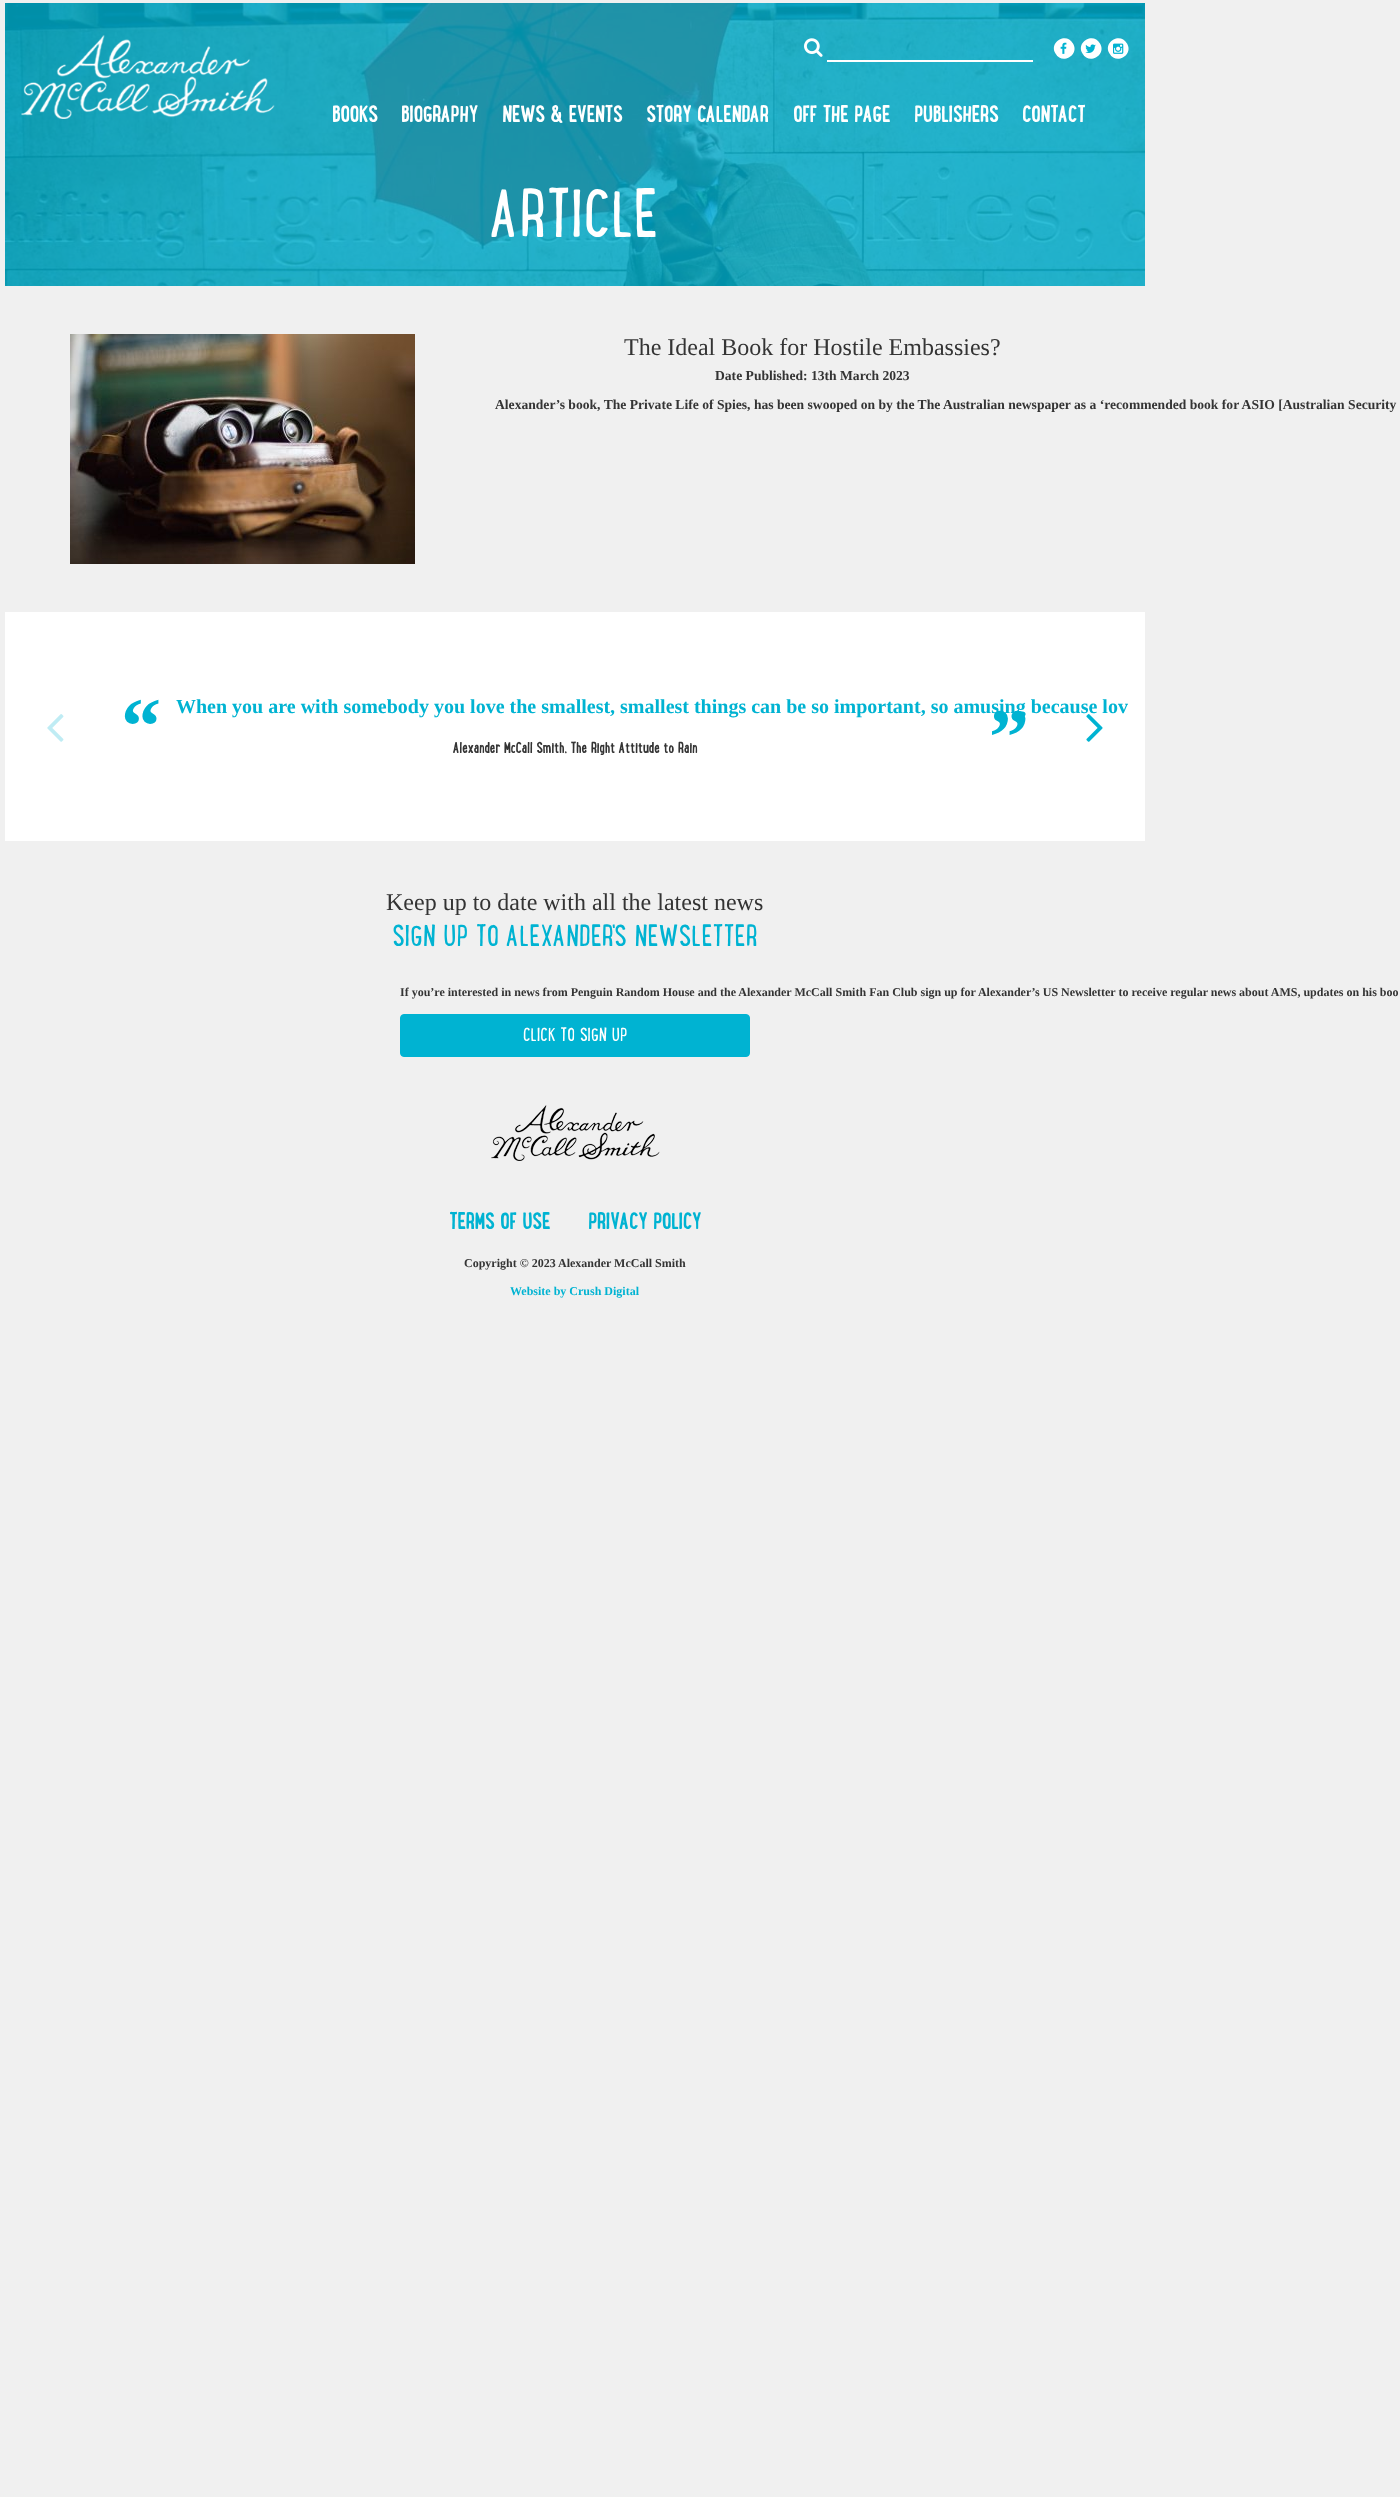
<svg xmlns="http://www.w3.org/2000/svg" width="1400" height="2497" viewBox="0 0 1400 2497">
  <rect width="100%" height="100%" fill="#f0f0f0"/>
  <image x="5" y="3" width="1140" height="283" href="img/1.png"/>
  <path d="M5 3h1140v148H5z" fill="#00b3d2cc"/>
  <image x="21" y="35" width="254" height="84" href="img/2.png"/>
  <image x="804" y="38" width="19" height="19" href="img/3.png"/>
  <path d="M827 60h206v2H827z" fill="#fff"/>
  <path d="M1073 43.5C1080 55 1062 65.5 1055.5 53.5C1048.5 42 1066.5 31.5 1073 43.5Z" fill="#fff"/>
  <image x="1060" y="42" width="7" height="12" href="img/4.png"/>
  <path d="M1100 43.5C1107 55 1089 65.5 1082.5 53.5C1075.5 42 1093.5 31.5 1100 43.5Z" fill="#fff"/>
  <image x="1085" y="44" width="11" height="9" href="img/5.png"/>
  <path d="M1127 43.5C1134 55 1116 65.5 1109.5 53.5C1102.5 42 1120.5 31.5 1127 43.5Z" fill="#fff"/>
  <image x="1113" y="43" width="11" height="11" href="img/6.png"/>
  <path d="M5 151h1140v135H5z" fill="#00b3d2cc"/>
  <image x="70" y="334" width="345" height="230" href="img/7.png"/>
  <path d="M5 612h1140v229H5z" fill="#fff"/>
  <image x="47" y="714" width="17" height="28" href="img/8.png"/>
  <rect x="400.5" y="1014.5" width="349" height="42" rx="3.5" fill="#00b3d2" stroke="#00b3d2"/>
  <image x="491" y="1105" width="169" height="56" href="img/10.png"/>
  <g font-family="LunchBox" font-size="24" font-weight="bold" fill="#fff">
    <text x="332" y="122">BOOKS</text>
    <text x="401" y="122">BIOGRAPHY</text>
    <text x="502" y="122">NEWS &amp; EVENTS</text>
    <text x="646" y="122">STORY CALENDAR</text>
    <text x="793" y="122">OFF THE PAGE</text>
    <text x="914" y="122">PUBLISHERS</text>
    <text x="1022" y="122">CONTACT</text>
  </g>
  <text x="491" y="237" font-family="LunchBox" font-size="72" fill="#fff">ARTICLE</text>
  <text x="624" y="355" font-family="Liberation Serif" font-size="24" fill="#343434">The Ideal Book for Hostile Embassies?</text>
  <g font-family="Liberation Serif" font-size="13.6" font-weight="bold" fill="#343434">
    <text x="715" y="380">Date Published: 13th March 2023</text>
    <text x="495" y="409">Alexander’s book, The Private Life of Spies, has been swooped on by the The Australian newspaper as a ‘recommended book for ASIO [Australian Security</text>
  </g>
  <text x="121" y="753" font-family="Liberation Serif" font-size="80" font-weight="bold" fill="#00b3d2">“</text>
  <text x="176" y="713" font-family="Liberation Serif" font-size="20" font-weight="bold" fill="#00b3d2">When you are with somebody you love the smallest, smallest things can be so important, so amusing because lov</text>
  <text x="989" y="764" font-family="Liberation Serif" font-size="80" font-weight="bold" fill="#00b3d2">”</text>
  <text x="453" y="753" font-family="LunchBox" font-size="16" font-weight="bold" fill="#343434">Alexander McCall Smith, The Right Attitude to Rain</text>
  <image x="1086" y="714" width="17" height="28" href="img/9.png"/>
  <text x="386" y="910" font-family="Liberation Serif" font-size="24" fill="#343434">Keep up to date with all the latest news</text>
  <text x="392" y="946" font-family="LunchBox" font-size="32" fill="#00b3d2">SIGN UP TO ALEXANDER'S NEWSLETTER</text>
  <text x="400" y="996" font-family="Liberation Serif" font-size="12" font-weight="bold" fill="#343434">If you’re interested in news from Penguin Random House and the Alexander McCall Smith Fan Club sign up for Alexander’s US Newsletter to receive regular news about AMS, updates on his boo</text>
  <text x="523" y="1041" font-family="LunchBox" font-size="20" fill="#fff">CLICK TO SIGN UP</text>
  <g font-family="LunchBox" font-size="24" font-weight="bold" fill="#00b3d2">
    <text x="449" y="1229">TERMS OF USE</text>
    <text x="588" y="1229">PRIVACY POLICY</text>
  </g>
  <text x="464" y="1267" font-family="Liberation Serif" font-size="12" font-weight="bold" fill="#343434">Copyright © 2023 Alexander McCall Smith</text>
  <text x="510" y="1295" font-family="Liberation Serif" font-size="12" font-weight="bold" fill="#00b3d2">Website by Crush Digital</text>
</svg>
